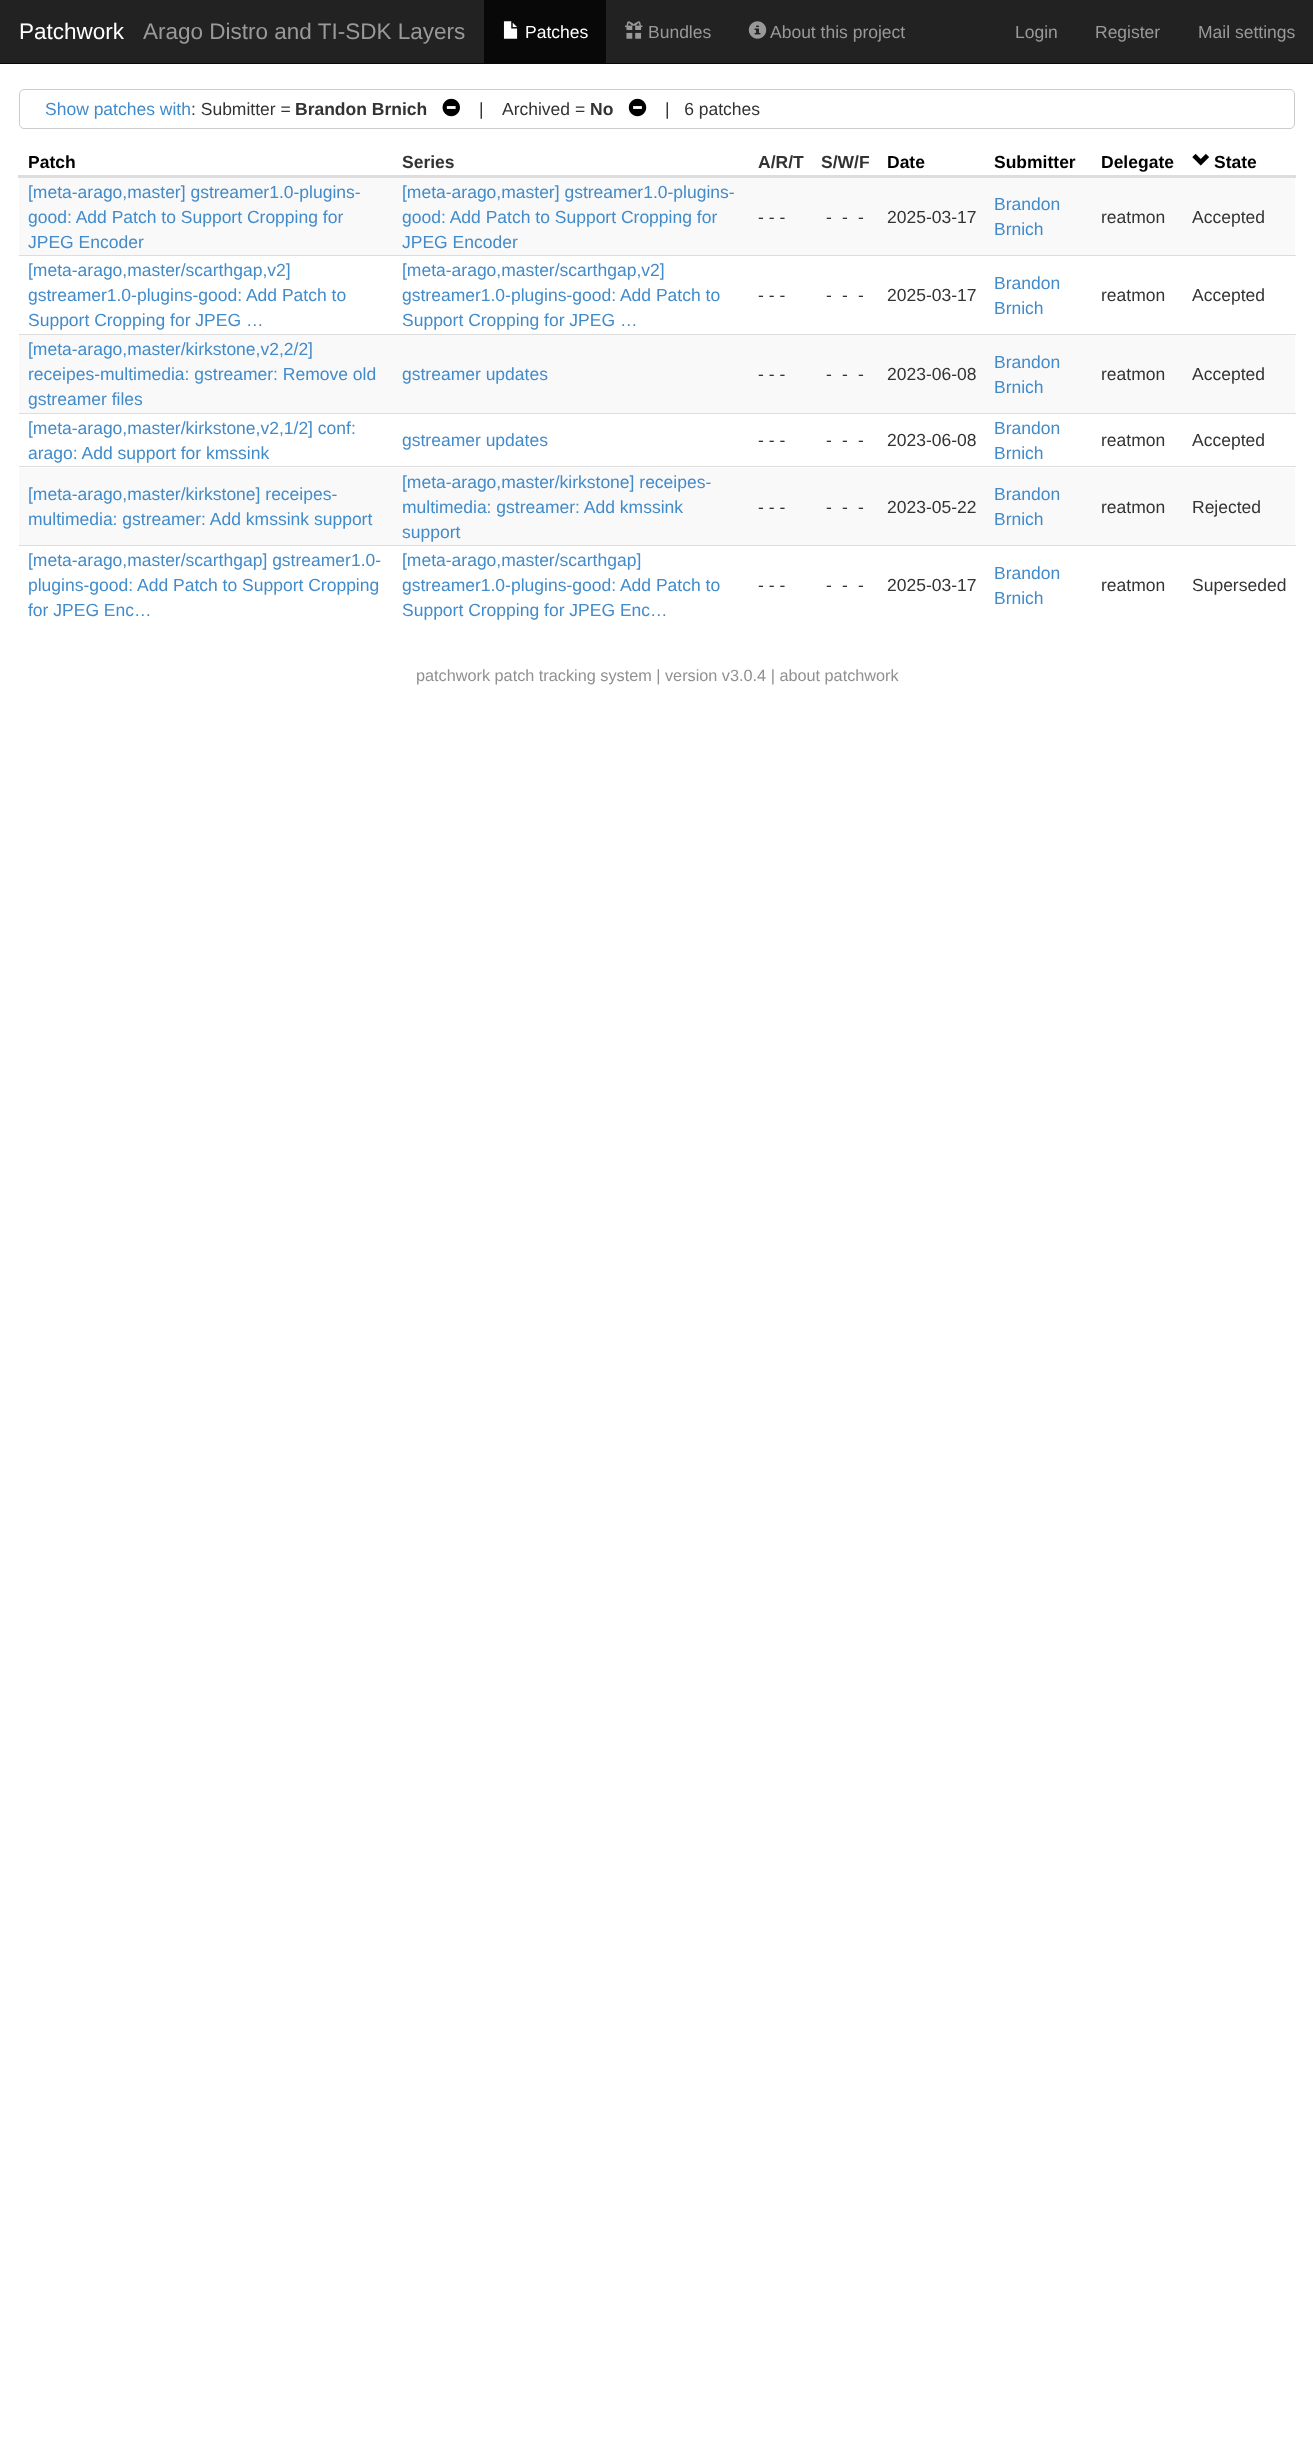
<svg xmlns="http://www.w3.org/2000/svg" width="1313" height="2451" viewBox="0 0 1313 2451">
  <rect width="100%" height="100%" fill="#fff"/>
  <path d="M0 0h1313v63H0z" fill="#222"/>
  <path d="M0 63h1313v1H0z" fill="#080808"/>
  <path d="M484 0h122v63H484z" fill="#080808"/>
  <image x="503" y="21" width="15" height="18" href="img/1.png"/>
  <image x="625" y="21" width="18" height="18" href="img/2.png"/>
  <image x="748" y="21" width="19" height="18" href="img/3.png"/>
  <rect x="19.5" y="89.5" width="1275" height="39" rx="4.5" fill="none" stroke="#ccc"/>
  <image x="442" y="98" width="18" height="19" href="img/4.png"/>
  <image x="628" y="98" width="19" height="19" href="img/5.png"/>
  <path d="M18 175h1278v3H18z" fill="#ddd"/>
  <image x="1192" y="153" width="18" height="13" href="img/6.png"/>
  <path d="M19 178h1276v77H19z" fill="#f9f9f9"/>
  <path d="M19 255h1277v1H19z" fill="#ddd"/>
  <path d="M19 335h1276v78H19z" fill="#f9f9f9"/>
  <path d="M19 334h1277v1H19z" fill="#ddd"/>
  <path d="M19 413h1277v1H19z" fill="#ddd"/>
  <path d="M19 468h1276v77H19z" fill="#f9f9f9"/>
  <path d="M19 466h1277v1H19z" fill="#ddd"/>
  <path d="M19 545h1277v1H19z" fill="#ddd"/>
  <text x="19" y="39" font-family="Liberation Sans" font-size="22.5" fill="#fff">Patchwork</text>
  <text x="143" y="39" font-family="Liberation Sans" font-size="22.5" fill="#999">Arago Distro and TI-SDK Layers</text>
  <text x="525" y="38" font-family="Liberation Sans" font-size="17.5" fill="#fff">Patches</text>
  <g font-family="Liberation Sans" font-size="17.5" fill="#999">
    <text x="648" y="38">Bundles</text>
    <text x="770" y="38">About this project</text>
    <text x="1015" y="38">Login</text>
    <text x="1095" y="38">Register</text>
    <text x="1198" y="38">Mail settings</text>
  </g>
  <text x="45" y="115" font-family="Liberation Sans" font-size="17.5" fill="#428bca">Show patches with</text>
  <text x="191" y="115" font-family="Liberation Sans" font-size="17.5" fill="#333">: Submitter =</text>
  <text x="295" y="115" font-family="Liberation Sans" font-size="17.5" font-weight="bold" fill="#333">Brandon Brnich</text>
  <g font-family="Liberation Sans" font-size="17.5" fill="#333">
    <text x="479" y="115">|</text>
    <text x="502" y="115">Archived =</text>
  </g>
  <text x="590" y="115" font-family="Liberation Sans" font-size="17.5" font-weight="bold" fill="#333">No</text>
  <text x="665" y="115" font-family="Liberation Sans" font-size="17.5" fill="#333" xml:space="preserve">|   6 patches</text>
  <text x="28" y="168" font-family="Liberation Sans" font-size="17.5" font-weight="bold" fill="#000">Patch</text>
  <g font-family="Liberation Sans" font-size="17.5" font-weight="bold" fill="#333">
    <text x="402" y="168">Series</text>
    <text x="758" y="168">A/R/T</text>
    <text x="821" y="168">S/W/F</text>
  </g>
  <g font-family="Liberation Sans" font-size="17.5" font-weight="bold" fill="#000">
    <text x="887" y="168">Date</text>
    <text x="994" y="168">Submitter</text>
    <text x="1101" y="168">Delegate</text>
    <text x="1214" y="168">State</text>
  </g>
  <g font-family="Liberation Sans" font-size="17.5" fill="#428bca">
    <text x="28" y="198">[meta-arago,master] gstreamer1.0-plugins-</text>
    <text x="28" y="223">good: Add Patch to Support Cropping for</text>
    <text x="28" y="248">JPEG Encoder</text>
    <text x="402" y="198">[meta-arago,master] gstreamer1.0-plugins-</text>
    <text x="402" y="223">good: Add Patch to Support Cropping for</text>
    <text x="402" y="248">JPEG Encoder</text>
  </g>
  <g font-family="Liberation Sans" font-size="17.5" fill="#333">
    <text x="758" y="223">- - -</text>
    <text x="826" y="223">-</text>
    <text x="842" y="223">-</text>
    <text x="858" y="223">-</text>
    <text x="887" y="223">2025-03-17</text>
  </g>
  <g font-family="Liberation Sans" font-size="17.5" fill="#428bca">
    <text x="994" y="210">Brandon</text>
    <text x="994" y="235">Brnich</text>
  </g>
  <g font-family="Liberation Sans" font-size="17.5" fill="#333">
    <text x="1101" y="223">reatmon</text>
    <text x="1192" y="223">Accepted</text>
  </g>
  <g font-family="Liberation Sans" font-size="17.5" fill="#428bca">
    <text x="28" y="276">[meta-arago,master/scarthgap,v2]</text>
    <text x="28" y="301">gstreamer1.0-plugins-good: Add Patch to</text>
    <text x="28" y="326">Support Cropping for JPEG …</text>
    <text x="402" y="276">[meta-arago,master/scarthgap,v2]</text>
    <text x="402" y="301">gstreamer1.0-plugins-good: Add Patch to</text>
    <text x="402" y="326">Support Cropping for JPEG …</text>
  </g>
  <g font-family="Liberation Sans" font-size="17.5" fill="#333">
    <text x="758" y="301">- - -</text>
    <text x="826" y="301">-</text>
    <text x="842" y="301">-</text>
    <text x="858" y="301">-</text>
    <text x="887" y="301">2025-03-17</text>
  </g>
  <g font-family="Liberation Sans" font-size="17.5" fill="#428bca">
    <text x="994" y="289">Brandon</text>
    <text x="994" y="314">Brnich</text>
  </g>
  <g font-family="Liberation Sans" font-size="17.5" fill="#333">
    <text x="1101" y="301">reatmon</text>
    <text x="1192" y="301">Accepted</text>
  </g>
  <g font-family="Liberation Sans" font-size="17.5" fill="#428bca">
    <text x="28" y="355">[meta-arago,master/kirkstone,v2,2/2]</text>
    <text x="28" y="380">receipes-multimedia: gstreamer: Remove old</text>
    <text x="28" y="405">gstreamer files</text>
    <text x="402" y="380">gstreamer updates</text>
  </g>
  <g font-family="Liberation Sans" font-size="17.5" fill="#333">
    <text x="758" y="380">- - -</text>
    <text x="826" y="380">-</text>
    <text x="842" y="380">-</text>
    <text x="858" y="380">-</text>
    <text x="887" y="380">2023-06-08</text>
  </g>
  <g font-family="Liberation Sans" font-size="17.5" fill="#428bca">
    <text x="994" y="368">Brandon</text>
    <text x="994" y="393">Brnich</text>
  </g>
  <g font-family="Liberation Sans" font-size="17.5" fill="#333">
    <text x="1101" y="380">reatmon</text>
    <text x="1192" y="380">Accepted</text>
  </g>
  <g font-family="Liberation Sans" font-size="17.5" fill="#428bca">
    <text x="28" y="434">[meta-arago,master/kirkstone,v2,1/2] conf:</text>
    <text x="28" y="459">arago: Add support for kmssink</text>
    <text x="402" y="446">gstreamer updates</text>
  </g>
  <g font-family="Liberation Sans" font-size="17.5" fill="#333">
    <text x="758" y="446">- - -</text>
    <text x="826" y="446">-</text>
    <text x="842" y="446">-</text>
    <text x="858" y="446">-</text>
    <text x="887" y="446">2023-06-08</text>
  </g>
  <g font-family="Liberation Sans" font-size="17.5" fill="#428bca">
    <text x="994" y="434">Brandon</text>
    <text x="994" y="459">Brnich</text>
  </g>
  <g font-family="Liberation Sans" font-size="17.5" fill="#333">
    <text x="1101" y="446">reatmon</text>
    <text x="1192" y="446">Accepted</text>
  </g>
  <g font-family="Liberation Sans" font-size="17.5" fill="#428bca">
    <text x="28" y="500">[meta-arago,master/kirkstone] receipes-</text>
    <text x="28" y="525">multimedia: gstreamer: Add kmssink support</text>
    <text x="402" y="488">[meta-arago,master/kirkstone] receipes-</text>
    <text x="402" y="513">multimedia: gstreamer: Add kmssink</text>
    <text x="402" y="538">support</text>
  </g>
  <g font-family="Liberation Sans" font-size="17.5" fill="#333">
    <text x="758" y="513">- - -</text>
    <text x="826" y="513">-</text>
    <text x="842" y="513">-</text>
    <text x="858" y="513">-</text>
    <text x="887" y="513">2023-05-22</text>
  </g>
  <g font-family="Liberation Sans" font-size="17.5" fill="#428bca">
    <text x="994" y="500">Brandon</text>
    <text x="994" y="525">Brnich</text>
  </g>
  <g font-family="Liberation Sans" font-size="17.5" fill="#333">
    <text x="1101" y="513">reatmon</text>
    <text x="1192" y="513">Rejected</text>
  </g>
  <g font-family="Liberation Sans" font-size="17.5" fill="#428bca">
    <text x="28" y="566">[meta-arago,master/scarthgap] gstreamer1.0-</text>
    <text x="28" y="591">plugins-good: Add Patch to Support Cropping</text>
    <text x="28" y="616">for JPEG Enc…</text>
    <text x="402" y="566">[meta-arago,master/scarthgap]</text>
    <text x="402" y="591">gstreamer1.0-plugins-good: Add Patch to</text>
    <text x="402" y="616">Support Cropping for JPEG Enc…</text>
  </g>
  <g font-family="Liberation Sans" font-size="17.5" fill="#333">
    <text x="758" y="591">- - -</text>
    <text x="826" y="591">-</text>
    <text x="842" y="591">-</text>
    <text x="858" y="591">-</text>
    <text x="887" y="591">2025-03-17</text>
  </g>
  <g font-family="Liberation Sans" font-size="17.5" fill="#428bca">
    <text x="994" y="579">Brandon</text>
    <text x="994" y="604">Brnich</text>
  </g>
  <g font-family="Liberation Sans" font-size="17.5" fill="#333">
    <text x="1101" y="591">reatmon</text>
    <text x="1192" y="591">Superseded</text>
  </g>
  <text x="416" y="681" font-family="Liberation Sans" font-size="16.25" fill="#909090">patchwork patch tracking system | version v3.0.4 | about patchwork</text>
</svg>
